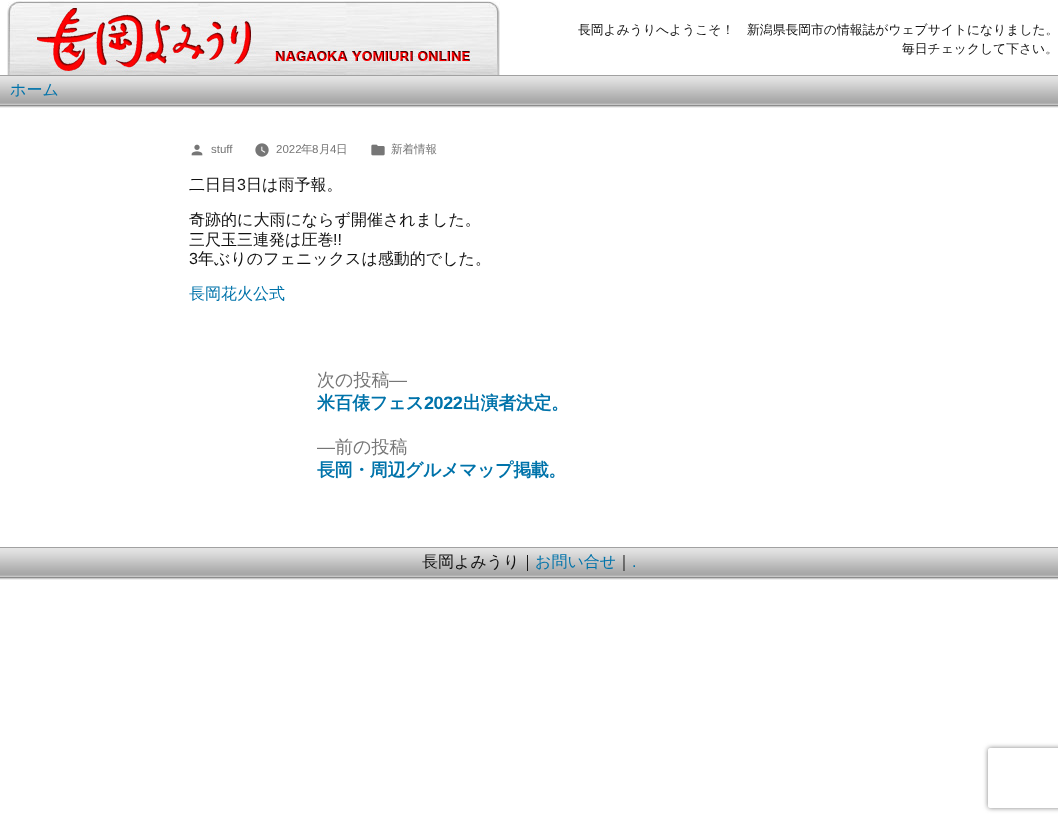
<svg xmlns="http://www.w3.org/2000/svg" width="1058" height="822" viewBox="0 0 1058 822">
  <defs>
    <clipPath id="clip1"><path d="M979 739H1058V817H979ZM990 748H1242C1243 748 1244 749 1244 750V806C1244 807 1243 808 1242 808H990C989 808 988 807 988 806V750C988 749 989 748 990 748Z" clip-rule="evenodd"/></clipPath>
  </defs>
  <rect width="100%" height="100%" fill="#fff"/>
  <image x="7" y="1" width="493" height="74" href="img/1.png"/>
  <image x="0" y="75" width="1058" height="33" href="img/2.png"/>
  <image x="191" y="144" width="12" height="12" href="img/3.png"/>
  <image x="255" y="143" width="14" height="14" href="img/4.png"/>
  <image x="371" y="144" width="14" height="12" href="img/5.png"/>
  <image x="0" y="547" width="1058" height="33" href="img/2.png"/>
  <g clip-path="url(#clip1)">
    <rect x="988" y="748" width="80" height="60" rx="2" fill="#808080" filter="blur(2.5px)"/>
  </g>
  <g font-family="WenQuanYi Zen Hei" font-size="12.8" font-weight="500" fill="#111">
    <text x="578" y="34">長岡よみうりへようこそ！　新潟県長岡市の情報誌がウェブサイトになりました。</text>
    <text x="902" y="53">毎日チェックして下さい。</text>
  </g>
  <text x="10" y="95" font-family="WenQuanYi Zen Hei" font-size="16" font-weight="500" fill="#0073aa">ホーム</text>
  <g font-family="Liberation Sans" font-size="11.5" fill="#767676">
    <text x="211" y="153">stuff</text>
    <text x="276" y="153">2022</text>
  </g>
  <text x="301" y="153" font-family="WenQuanYi Zen Hei" font-size="11.5" font-weight="500" fill="#767676">年</text>
  <text x="312" y="153" font-family="Liberation Sans" font-size="11.5" fill="#767676">8</text>
  <text x="319" y="153" font-family="WenQuanYi Zen Hei" font-size="11.5" font-weight="500" fill="#767676">月</text>
  <text x="330" y="153" font-family="Liberation Sans" font-size="11.5" fill="#767676">4</text>
  <g font-family="WenQuanYi Zen Hei" font-size="11.5" font-weight="500" fill="#767676">
    <text x="336" y="153">日</text>
    <text x="391" y="153">新着情報</text>
  </g>
  <text x="189" y="190" font-family="WenQuanYi Zen Hei" font-size="16" font-weight="500" fill="#111">二日目</text>
  <text x="237" y="190" font-family="Liberation Sans" font-size="16" fill="#111">3</text>
  <g font-family="WenQuanYi Zen Hei" font-size="16" font-weight="500" fill="#111">
    <text x="246" y="190">日は雨予報。</text>
    <text x="189" y="225">奇跡的に大雨にならず開催されました。</text>
    <text x="189" y="245">三尺玉三連発は圧巻</text>
  </g>
  <g font-family="Liberation Sans" font-size="16" fill="#111">
    <text x="333" y="245">!!</text>
    <text x="189" y="264">3</text>
  </g>
  <text x="198" y="264" font-family="WenQuanYi Zen Hei" font-size="16" font-weight="500" fill="#111">年ぶりのフェニックスは感動的でした。</text>
  <text x="189" y="299" font-family="WenQuanYi Zen Hei" font-size="16" font-weight="500" fill="#0073aa">長岡花火公式</text>
  <text x="317" y="386" font-family="WenQuanYi Zen Hei" font-size="18" font-weight="500" fill="#767676">次の投稿</text>
  <text x="389" y="386" font-family="Liberation Sans" font-size="18" fill="#767676">—</text>
  <text x="317" y="409" font-family="WenQuanYi Zen Hei" font-size="18" font-weight="bold" letter-spacing="-0.4" fill="#0073aa">米百俵フェス</text>
  <text x="424" y="409" font-family="Liberation Sans" font-size="18" font-weight="bold" letter-spacing="-0.4" fill="#0073aa">2022</text>
  <text x="463" y="409" font-family="WenQuanYi Zen Hei" font-size="18" font-weight="bold" letter-spacing="-0.4" fill="#0073aa">出演者決定。</text>
  <text x="317" y="453" font-family="Liberation Sans" font-size="18" fill="#767676">—</text>
  <text x="335" y="453" font-family="WenQuanYi Zen Hei" font-size="18" font-weight="500" fill="#767676">前の投稿</text>
  <text x="317" y="476" font-family="WenQuanYi Zen Hei" font-size="18" font-weight="bold" letter-spacing="-0.4" fill="#0073aa">長岡・周辺グルメマップ掲載。</text>
  <text x="422" y="567" font-family="WenQuanYi Zen Hei" font-size="16" font-weight="500" fill="#111">長岡よみうり｜</text>
  <text x="535" y="567" font-family="WenQuanYi Zen Hei" font-size="16" font-weight="500" fill="#0073aa">お問い合せ</text>
  <text x="616" y="567" font-family="WenQuanYi Zen Hei" font-size="16" font-weight="500" fill="#111">｜</text>
  <text x="632" y="567" font-family="Liberation Sans" font-size="16" fill="#0073aa">.</text>
</svg>
